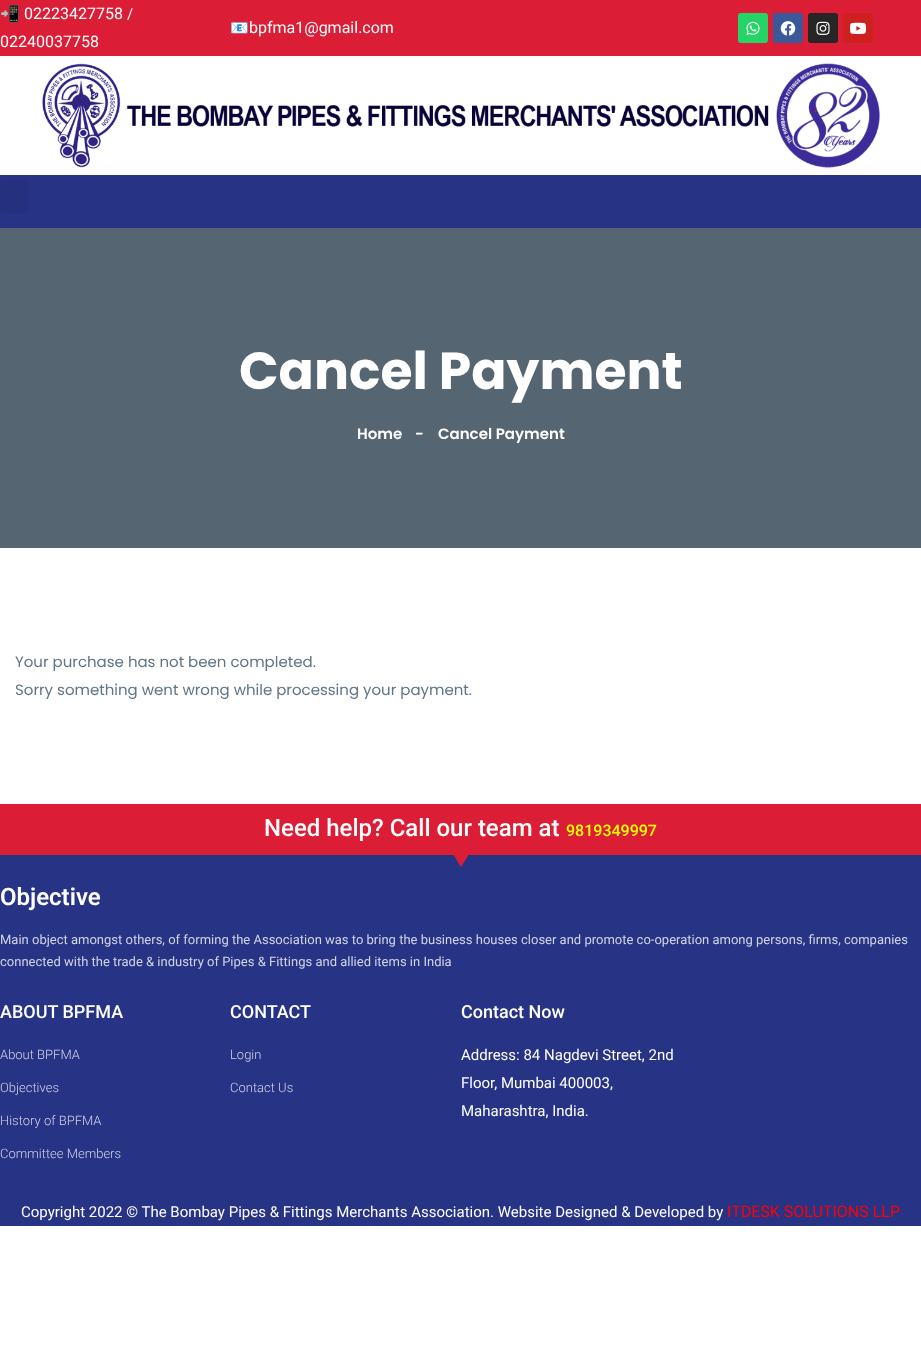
<svg xmlns="http://www.w3.org/2000/svg" width="921" height="1367" viewBox="0 0 921 1367">
  <rect width="100%" height="100%" fill="#fff"/>
  <path d="M0 0h921v56H0z" fill="#db1e36"/>
  <rect x="738" y="13" width="30" height="30" rx="3" fill="#25d366"/>
  <image x="746" y="21" width="14" height="14" href="img/1.png"/>
  <rect x="773" y="13" width="30" height="30" rx="3" fill="#3b5998"/>
  <image x="780" y="21" width="16" height="15" href="img/2.png"/>
  <rect x="808" y="13" width="30" height="30" rx="3" fill="#262626"/>
  <image x="816" y="21" width="14" height="14" href="img/3.png"/>
  <rect x="843" y="13" width="30" height="30" rx="3" fill="#cd201f"/>
  <image x="850" y="22" width="16" height="12" href="img/4.png"/>
  <image x="42" y="63" width="838" height="106" href="img/5.png"/>
  <path d="M0 175h921v53H0z" fill="#273485"/>
  <rect y="180" width="28" height="33" rx="3" fill="#25317e"/>
  <path d="M0 228h921v320H0z" fill="#566572"/>
  <path d="M0 804h921v51H0z" fill="#db1e36"/>
  <path d="M0 855h921v371H0z" fill="#273485"/>
  <path d="M461 867L453 854H469Z" fill="#db1e36"/>
  <text x="0" y="19" font-family="Noto Color Emoji" font-size="16" fill="#fff">📲</text>
  <text x="24" y="19" font-family="Roboto" font-size="16" fill="#fff">02223427758</text>
  <text x="127" y="19" font-family="Roboto" font-size="15" fill="#fff">/</text>
  <text x="0" y="47" font-family="Roboto" font-size="16" fill="#fff">02240037758</text>
  <text x="230" y="33" font-family="Noto Color Emoji" font-size="15" fill="#7a7a7a">📧</text>
  <text x="249" y="33" font-family="Roboto" font-size="16" fill="#fff">bpfma1@gmail.com</text>
  <text x="239" y="389" font-family="Poppins" font-size="52" font-weight="bold" fill="#fff">Cancel Payment</text>
  <g font-family="Poppins" font-size="15" font-weight="600" fill="#fff">
    <text x="357" y="439">Home</text>
    <text x="415" y="439">-</text>
    <text x="438" y="439">Cancel Payment</text>
  </g>
  <g font-family="Poppins" font-size="15" fill="#5f7586">
    <text x="15" y="667">Your purchase has not been completed.</text>
    <text x="15" y="695">Sorry something went wrong while processing your payment.</text>
  </g>
  <text x="264" y="836" font-family="Roboto" font-size="24" font-weight="500" fill="#fff">Need help? Call our team at</text>
  <text x="566" y="836" font-family="Roboto" font-size="16" font-weight="500" fill="#ff0">9819349997</text>
  <text x="0" y="905" font-family="Roboto" font-size="24" font-weight="600" fill="#fff">Objective</text>
  <g font-family="Roboto" font-size="13" fill="#d2d4e5">
    <text x="0" y="944">Main object amongst others, of forming the Association was to bring the business houses closer and promote co-operation among persons, firms, companies</text>
    <text x="0" y="966">connected with the trade &amp; industry of Pipes &amp; Fittings and allied items in India</text>
  </g>
  <text x="0" y="1018" font-family="Roboto" font-size="18" font-weight="500" fill="#fff">ABOUT BPFMA</text>
  <g font-family="Roboto" font-size="13" font-weight="300" fill="#d2d4e5">
    <text x="0" y="1059">About BPFMA</text>
    <text x="0" y="1092">Objectives</text>
    <text x="0" y="1125">History of BPFMA</text>
    <text x="0" y="1158">Committee Members</text>
  </g>
  <text x="230" y="1018" font-family="Roboto" font-size="18" font-weight="500" fill="#fff">CONTACT</text>
  <g font-family="Roboto" font-size="13" font-weight="300" fill="#d2d4e5">
    <text x="230" y="1059">Login</text>
    <text x="230" y="1092">Contact Us</text>
  </g>
  <text x="461" y="1018" font-family="Roboto" font-size="18" font-weight="500" fill="#fff">Contact Now</text>
  <g font-family="Roboto" font-size="15" fill="#fff">
    <text x="461" y="1060">Address: 84 Nagdevi Street, 2nd</text>
    <text x="461" y="1088">Floor, Mumbai 400003,</text>
    <text x="461" y="1116">Maharashtra, India.</text>
    <text x="21" y="1217">Copyright 2022 © The Bombay Pipes &amp; Fittings Merchants Association. Website Designed &amp; Developed by</text>
  </g>
  <text x="727" y="1217" font-family="Roboto" font-size="16" fill="#f00">ITDESK SOLUTIONS LLP</text>
</svg>
